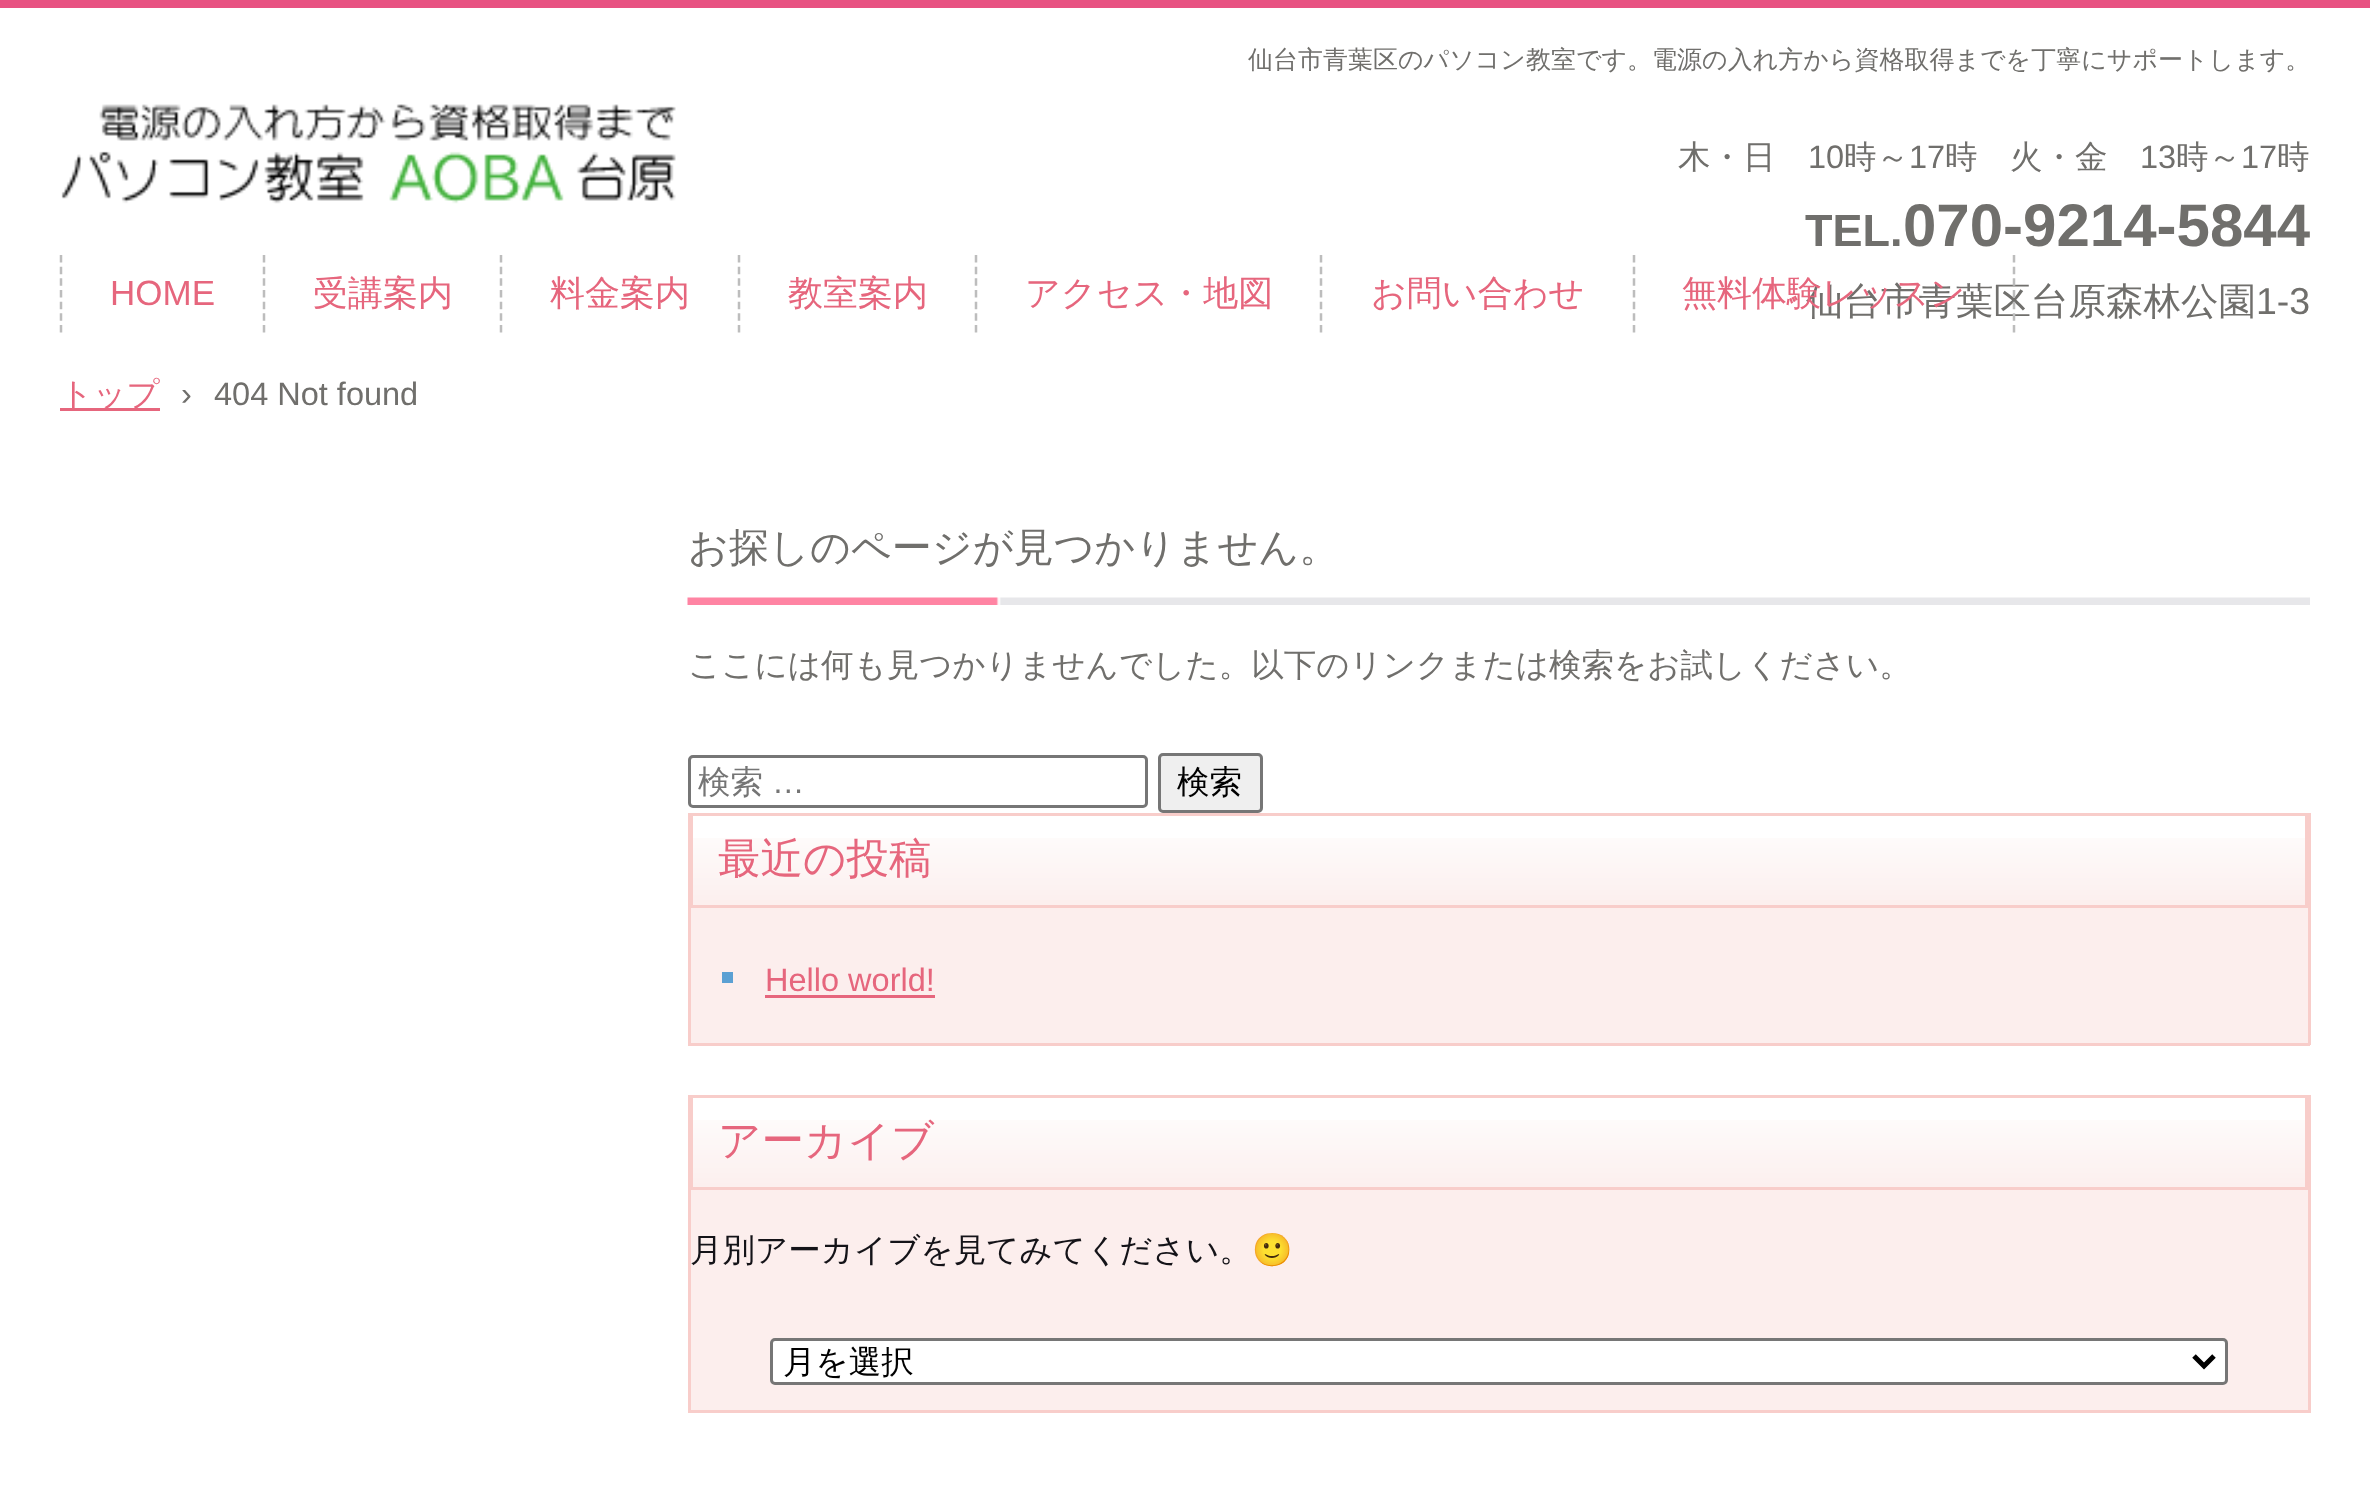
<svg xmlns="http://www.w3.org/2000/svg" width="2370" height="1500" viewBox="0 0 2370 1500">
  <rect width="100%" height="100%" fill="#fff"/>
  <path d="M0 0h2370v8H0z" fill="#e85282"/>
  <image x="61" y="104" width="615" height="100" href="img/1.png"/>
  <path d="M264 255V332.5" fill="none" stroke="#bdbdbd" stroke-width="2.5" stroke-dasharray="7.5 4.17"/>
  <path d="M61 255V332.5" fill="none" stroke="#bdbdbd" stroke-width="2.5" stroke-dasharray="7.5 4.17"/>
  <path d="M501 255V332.5" fill="none" stroke="#bdbdbd" stroke-width="2.5" stroke-dasharray="7.5 4.17"/>
  <path d="M739 255V332.5" fill="none" stroke="#bdbdbd" stroke-width="2.5" stroke-dasharray="7.5 4.17"/>
  <path d="M976 255V332.5" fill="none" stroke="#bdbdbd" stroke-width="2.5" stroke-dasharray="7.5 4.17"/>
  <path d="M1321 255V332.5" fill="none" stroke="#bdbdbd" stroke-width="2.5" stroke-dasharray="7.5 4.17"/>
  <path d="M1634 255V332.5" fill="none" stroke="#bdbdbd" stroke-width="2.5" stroke-dasharray="7.5 4.17"/>
  <path d="M60 408h100v3H60z" fill="#e6667d"/>
  <image x="687" y="597" width="1623" height="8" href="img/2.png"/>
  <rect x="689.5" y="756.5" width="457" height="50" rx="3.5" fill="none" stroke="#767676" stroke-width="3"/>
  <rect x="1159.5" y="754.5" width="102" height="57" rx="3.5" fill="#efefef" stroke="#767676" stroke-width="3"/>
  <path d="M691 908h1617v135H691z" fill="#fceeed"/>
  <path d="M2308 813h3v232H2308z" fill="#f8cdca"/>
  <path d="M688 1043h1622v3H688z" fill="#f8cdca"/>
  <path d="M688 813h3v232H688z" fill="#f8cdca"/>
  <image x="693" y="838" width="1612" height="67" href="img/3.png"/>
  <path d="M691.5 814.5h1615v92H691.5z" fill="none" stroke="#f8cdca" stroke-width="3"/>
  <path d="M722 972h11v11H722z" fill="#5ba0d3"/>
  <path d="M765 995h170v3H765z" fill="#e6667d"/>
  <path d="M691 1190h1617v220H691z" fill="#fceeed"/>
  <path d="M2308 1095h3v318H2308z" fill="#f8cdca"/>
  <path d="M688 1410h1622v3H688z" fill="#f8cdca"/>
  <path d="M688 1095h3v318H688z" fill="#f8cdca"/>
  <image x="693" y="1120" width="1612" height="67" href="img/4.png"/>
  <path d="M691.5 1096.5h1615v92H691.5z" fill="none" stroke="#f8cdca" stroke-width="3"/>
  <rect x="771.5" y="1339.5" width="1455" height="44" rx="3.5" fill="#fff" stroke="#767676" stroke-width="3"/>
  <path d="M2194 1356L2204 1366L2214 1356" fill="none" stroke="#000" stroke-width="5"/>
  <text x="1248" y="68" font-family="WenQuanYi Zen Hei" font-size="25" font-weight="500" fill="#706f6c">仙台市青葉区のパソコン教室です。電源の入れ方から資格取得までを丁寧にサポートします。</text>
  <text x="110" y="305" font-family="Liberation Sans" font-size="35" fill="#e6667d">HOME</text>
  <g font-family="WenQuanYi Zen Hei" font-size="35" font-weight="500" fill="#e6667d">
    <text x="313" y="305">受講案内</text>
    <text x="550" y="305">料金案内</text>
    <text x="788" y="305">教室案内</text>
    <text x="1025" y="305">アクセス・地図</text>
    <text x="1371" y="305">お問い合わせ</text>
  </g>
  <text x="1678" y="168" font-family="WenQuanYi Zen Hei" font-size="32.5" font-weight="500" fill="#706f6c">木・日</text>
  <text x="1808" y="168" font-family="Liberation Sans" font-size="32.5" fill="#706f6c">10</text>
  <text x="1844" y="168" font-family="WenQuanYi Zen Hei" font-size="32.5" font-weight="500" fill="#706f6c">時～</text>
  <text x="1909" y="168" font-family="Liberation Sans" font-size="32.5" fill="#706f6c">17</text>
  <text x="1945" y="168" font-family="WenQuanYi Zen Hei" font-size="32.5" font-weight="500" fill="#706f6c">時　火・金</text>
  <text x="2140" y="168" font-family="Liberation Sans" font-size="32.5" fill="#706f6c">13</text>
  <text x="2176" y="168" font-family="WenQuanYi Zen Hei" font-size="32.5" font-weight="500" fill="#706f6c">時～</text>
  <text x="2241" y="168" font-family="Liberation Sans" font-size="32.5" fill="#706f6c">17</text>
  <text x="2277" y="168" font-family="WenQuanYi Zen Hei" font-size="32.5" font-weight="500" fill="#706f6c">時</text>
  <text x="1805" y="246" font-family="Liberation Sans" font-size="45" font-weight="bold" fill="#706f6c">TEL.</text>
  <text x="1903" y="246" font-family="Liberation Sans" font-size="60" font-weight="bold" fill="#706f6c">070-9214-5844</text>
  <text x="1806" y="314" font-family="WenQuanYi Zen Hei" font-size="37.5" font-weight="500" fill="#706f6c">仙台市青葉区台原森林公園</text>
  <text x="1682" y="305" font-family="WenQuanYi Zen Hei" font-size="35" font-weight="500" fill="#e6667d">無料体験レッスン</text>
  <path d="M2014 255V332.5" fill="none" stroke="#bdbdbd" stroke-width="2.5" stroke-dasharray="7.5 4.17"/>
  <text x="2256" y="314" font-family="Liberation Sans" font-size="37.5" fill="#706f6c">1-3</text>
  <text x="60" y="405" font-family="WenQuanYi Zen Hei" font-size="32.5" font-weight="500" fill="#e6667d">トップ</text>
  <g font-family="Liberation Sans" font-size="32.5" fill="#706f6c">
    <text x="181" y="405">›</text>
    <text x="214" y="405">404 Not found</text>
  </g>
  <text x="688" y="561" font-family="WenQuanYi Zen Hei" font-size="40" font-weight="500" fill="#706f6c">お探しのページが見つかりません。</text>
  <text x="688" y="676" font-family="WenQuanYi Zen Hei" font-size="32.5" font-weight="500" fill="#706f6c">ここには何も見つかりませんでした。以下のリンクまたは検索をお試しください。</text>
  <text x="698" y="793" font-family="WenQuanYi Zen Hei" font-size="32.5" font-weight="500" fill="#757575">検索</text>
  <text x="772" y="793" font-family="Liberation Sans" font-size="32.5" fill="#757575">…</text>
  <text x="1177" y="793" font-family="WenQuanYi Zen Hei" font-size="32.5" font-weight="500" fill="#000">検索</text>
  <text x="718" y="873" font-family="WenQuanYi Zen Hei" font-size="42.5" font-weight="500" fill="#e6667d">最近の投稿</text>
  <text x="765" y="991" font-family="Liberation Sans" font-size="32.5" fill="#e6667d">Hello world!</text>
  <text x="718" y="1155" font-family="WenQuanYi Zen Hei" font-size="42.5" font-weight="500" fill="#e6667d">アーカイブ</text>
  <text x="690" y="1261" font-family="WenQuanYi Zen Hei" font-size="32.5" font-weight="500" fill="#141318">月別アーカイブを見てみてください。</text>
  <text x="1252" y="1261" font-family="Noto Color Emoji" font-size="32.5" fill="#141318">🙂</text>
  <text x="783" y="1373" font-family="WenQuanYi Zen Hei" font-size="32.5" font-weight="500" fill="#000">月を選択</text>
</svg>
